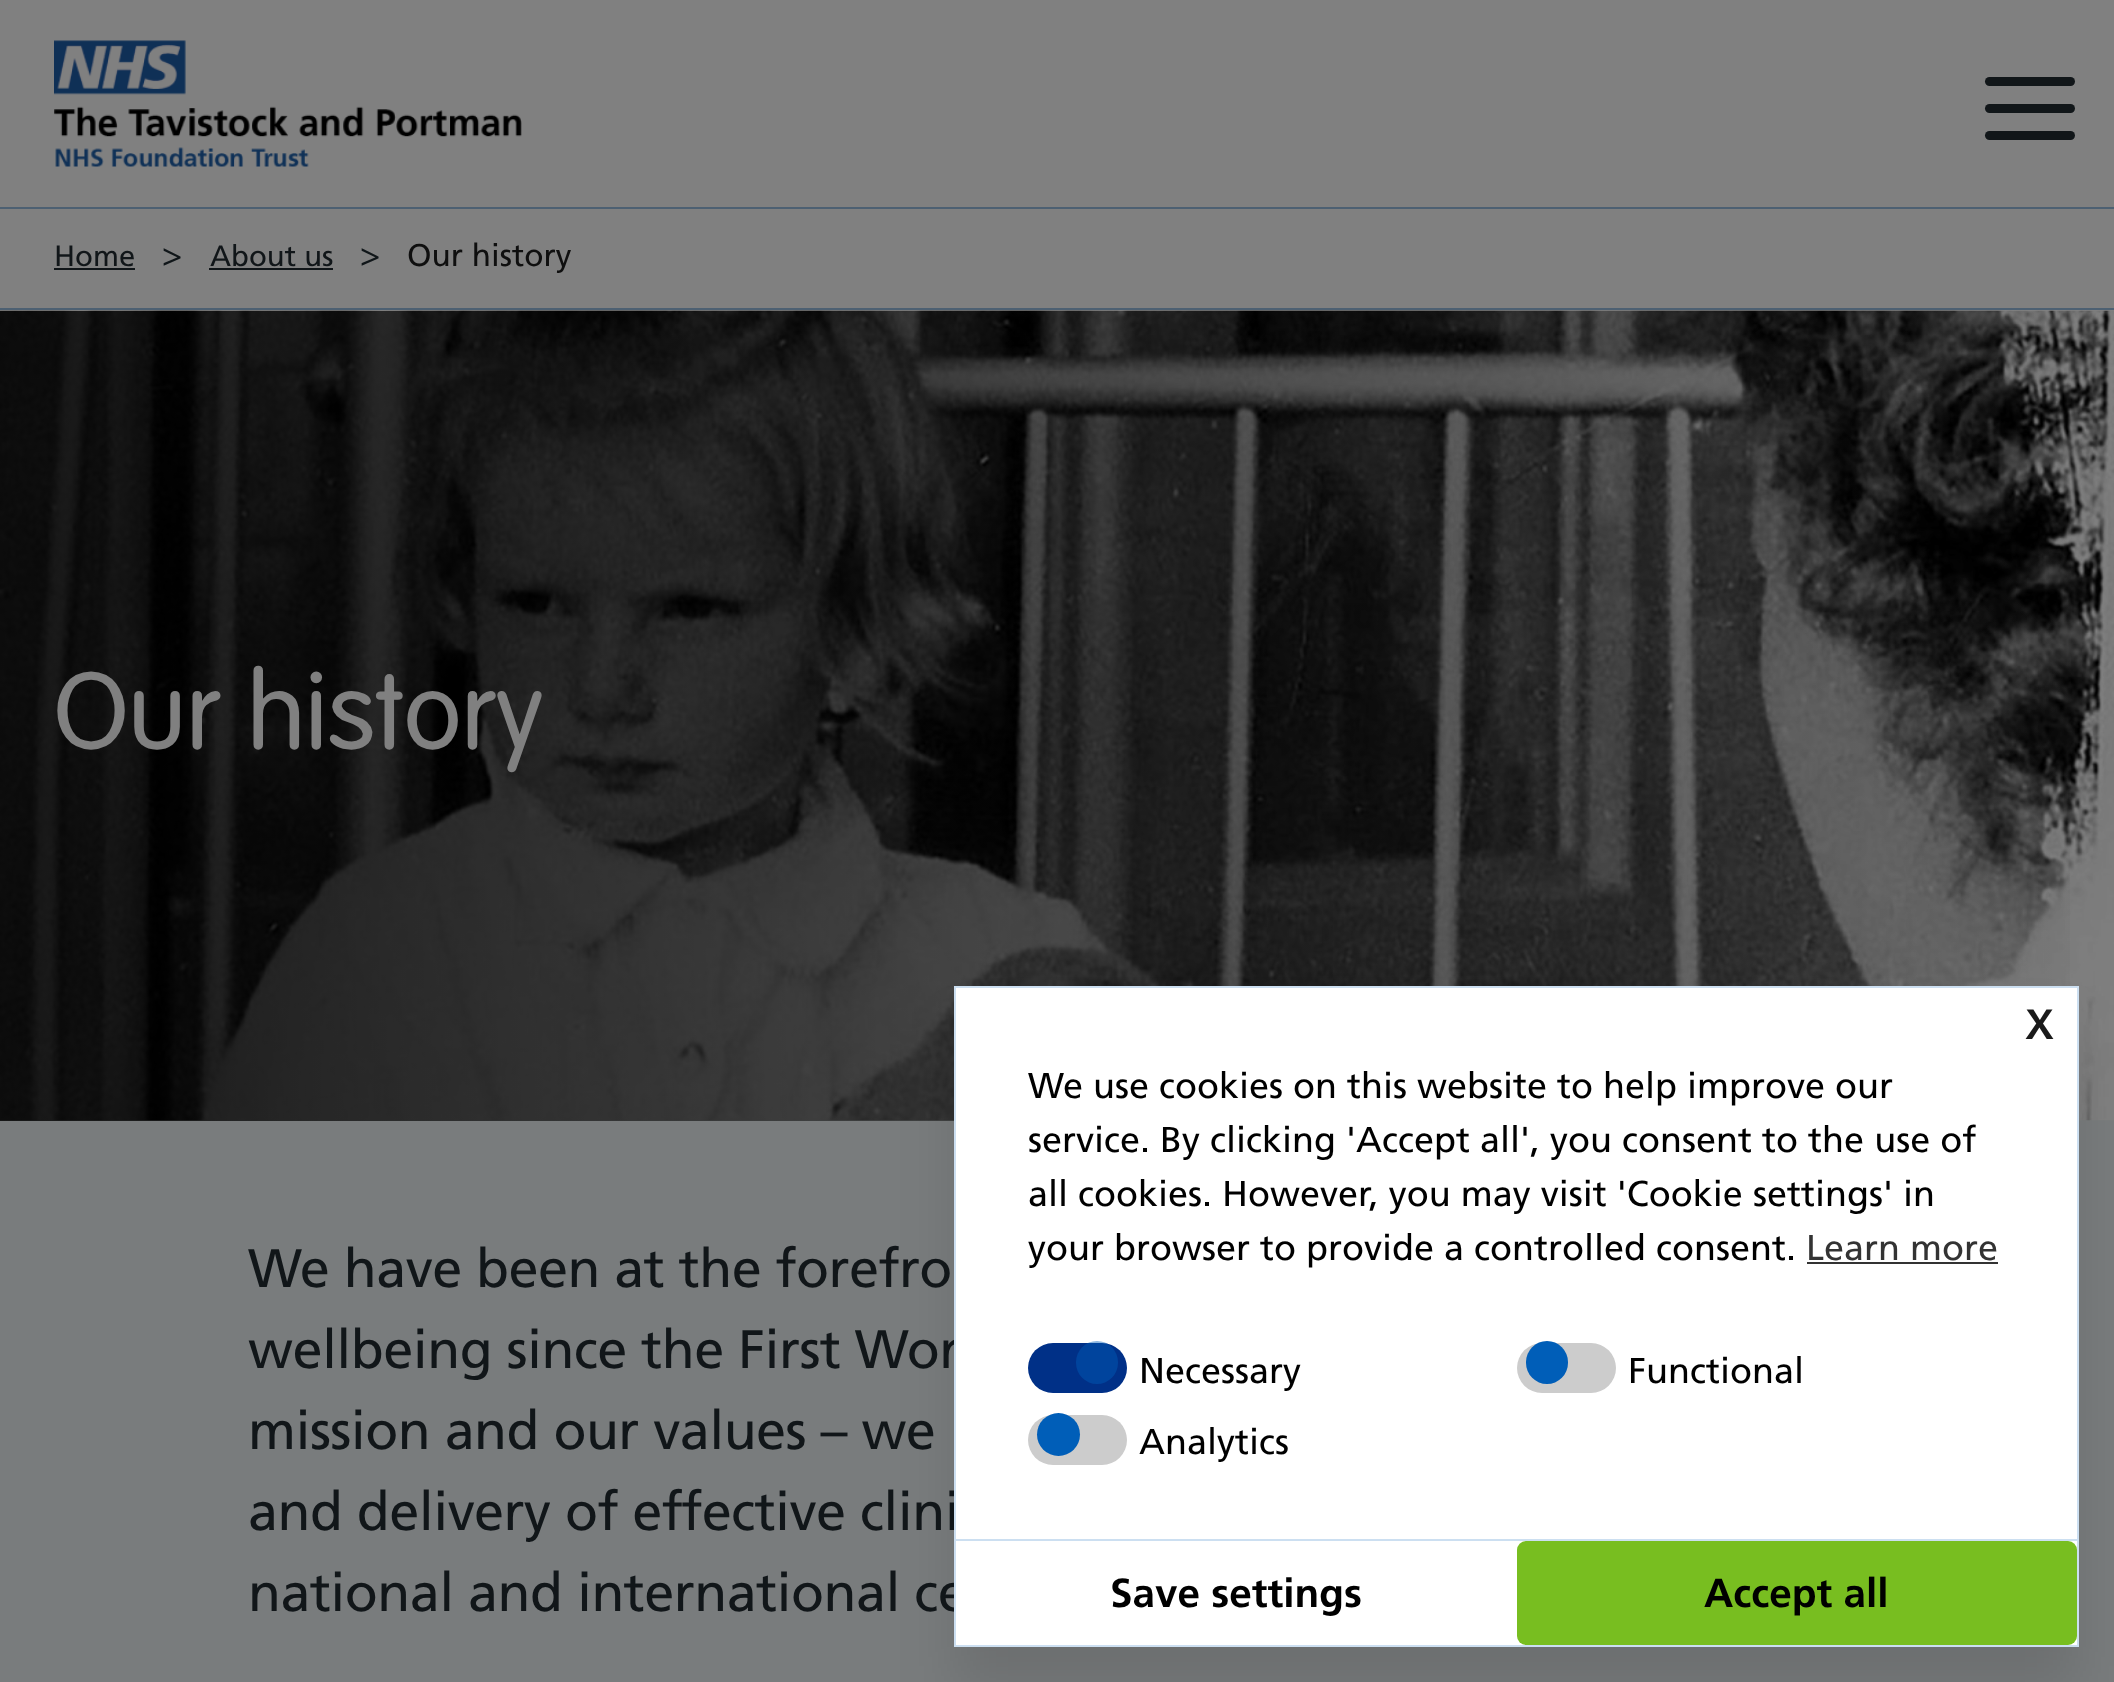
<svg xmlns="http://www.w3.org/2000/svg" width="2114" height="1682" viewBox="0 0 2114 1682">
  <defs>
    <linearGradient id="g1" gradientUnits="userSpaceOnUse" x1="-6.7" y1="734" x2="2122" y2="697"><stop offset="0" stop-color="#000" stop-opacity="0.8"/><stop offset="1" stop-color="#000" stop-opacity="0"/></linearGradient>
  </defs>
  <rect width="100%" height="100%" fill="#797c7d"/>
  <path d="M0 0h2114v207H0z" fill="#808080"/>
  <path d="M0 207h2114v2H0z" fill="#4d6072"/>
  <image x="54" y="40" width="468" height="127" href="img/1.png"/>
  <rect x="1985" y="77" width="90" height="9" rx="4.5" fill="#111619"/>
  <rect x="1985" y="104" width="90" height="9" rx="4.5" fill="#111619"/>
  <rect x="1985" y="131" width="90" height="9" rx="4.5" fill="#111619"/>
  <path d="M0 209h2114v102H0z" fill="#808080"/>
  <path d="M0 308h2114v2H0z" fill="#4d6072"/>
  <path d="M54 268h81v2H54z" fill="#111619"/>
  <image x="163" y="248" width="18" height="18" href="img/2.png"/>
  <path d="M209 268h124v2H209z" fill="#111619"/>
  <image x="361" y="248" width="18" height="18" href="img/2.png"/>
  <image x="0" y="310" width="2114" height="811" href="img/3.png"/>
  <path d="M0 311h2070v810H0z" fill="url(#g1)"/>
  <path d="M954 1031h1125v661H954z" fill="#0000001a" filter="blur(28px)"/>
  <g font-family="Frutiger" font-size="29.25" fill="#111619">
    <text x="54" y="266">Home</text>
    <text x="210" y="266">About us</text>
  </g>
  <text x="407" y="266" font-family="Frutiger" font-size="31.5" fill="#0f0f0f">Our history</text>
  <text x="54" y="749" font-family="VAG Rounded" font-size="108" font-weight="300" fill="#808080">Our history</text>
  <g font-family="Frutiger" font-size="54" letter-spacing="-0.55" fill="#111619">
    <text x="248" y="1287">We have been at the forefro</text>
    <text x="248" y="1368">wellbeing since the First Wor</text>
    <text x="248" y="1449">mission and our values – we</text>
    <text x="248" y="1530">and delivery of effective clini</text>
    <text x="248" y="1611">national and international ce</text>
  </g>
  <path d="M955 987h1123v659H955z" fill="#fff" stroke="#ccdff1" stroke-width="2"/>
  <text x="2025" y="1039" font-family="Frutiger" font-size="58" fill="#1a1a1a">x</text>
  <g font-family="Frutiger" font-size="36" fill="#000">
    <text x="1028" y="1098">We use cookies on this website to help improve our</text>
    <text x="1028" y="1152">service. By clicking 'Accept all', you consent to the use of</text>
    <text x="1028" y="1206">all cookies. However, you may visit 'Cookie settings' in</text>
    <text x="1028" y="1260">your browser to provide a controlled consent.</text>
  </g>
  <text x="1806" y="1260" font-family="Frutiger" font-size="36" fill="#333">Learn more</text>
  <path d="M1807 1262h191v2H1807z" fill="#333"/>
  <rect x="1028" y="1343" width="99" height="50" rx="25" fill="#003087"/>
  <rect x="1076" y="1341" width="42" height="43" rx="21" fill="#005eb873"/>
  <text x="1139" y="1383" font-family="Frutiger" font-size="36" fill="#000">Necessary</text>
  <rect x="1517" y="1343" width="99" height="50" rx="25" fill="#ccc"/>
  <rect x="1526" y="1341" width="42" height="43" rx="21" fill="#005eb8"/>
  <text x="1628" y="1383" font-family="Frutiger" font-size="36" fill="#000">Functional</text>
  <rect x="1028" y="1415" width="99" height="50" rx="25" fill="#ccc"/>
  <circle cx="1058.5" cy="1434.5" r="21.5" fill="#005eb8"/>
  <text x="1139" y="1454" font-family="Frutiger" font-size="36" fill="#000">Analytics</text>
  <path d="M956 1539h1121v2H956z" fill="#ccdff1"/>
  <text x="1110" y="1607" font-family="Frutiger" font-size="40.5" font-weight="bold" fill="#000">Save settings</text>
  <rect x="1517" y="1541" width="560" height="104" rx="9" fill="#78be20"/>
  <text x="1704" y="1607" font-family="Frutiger" font-size="40.5" font-weight="bold" fill="#000">Accept all</text>
</svg>
